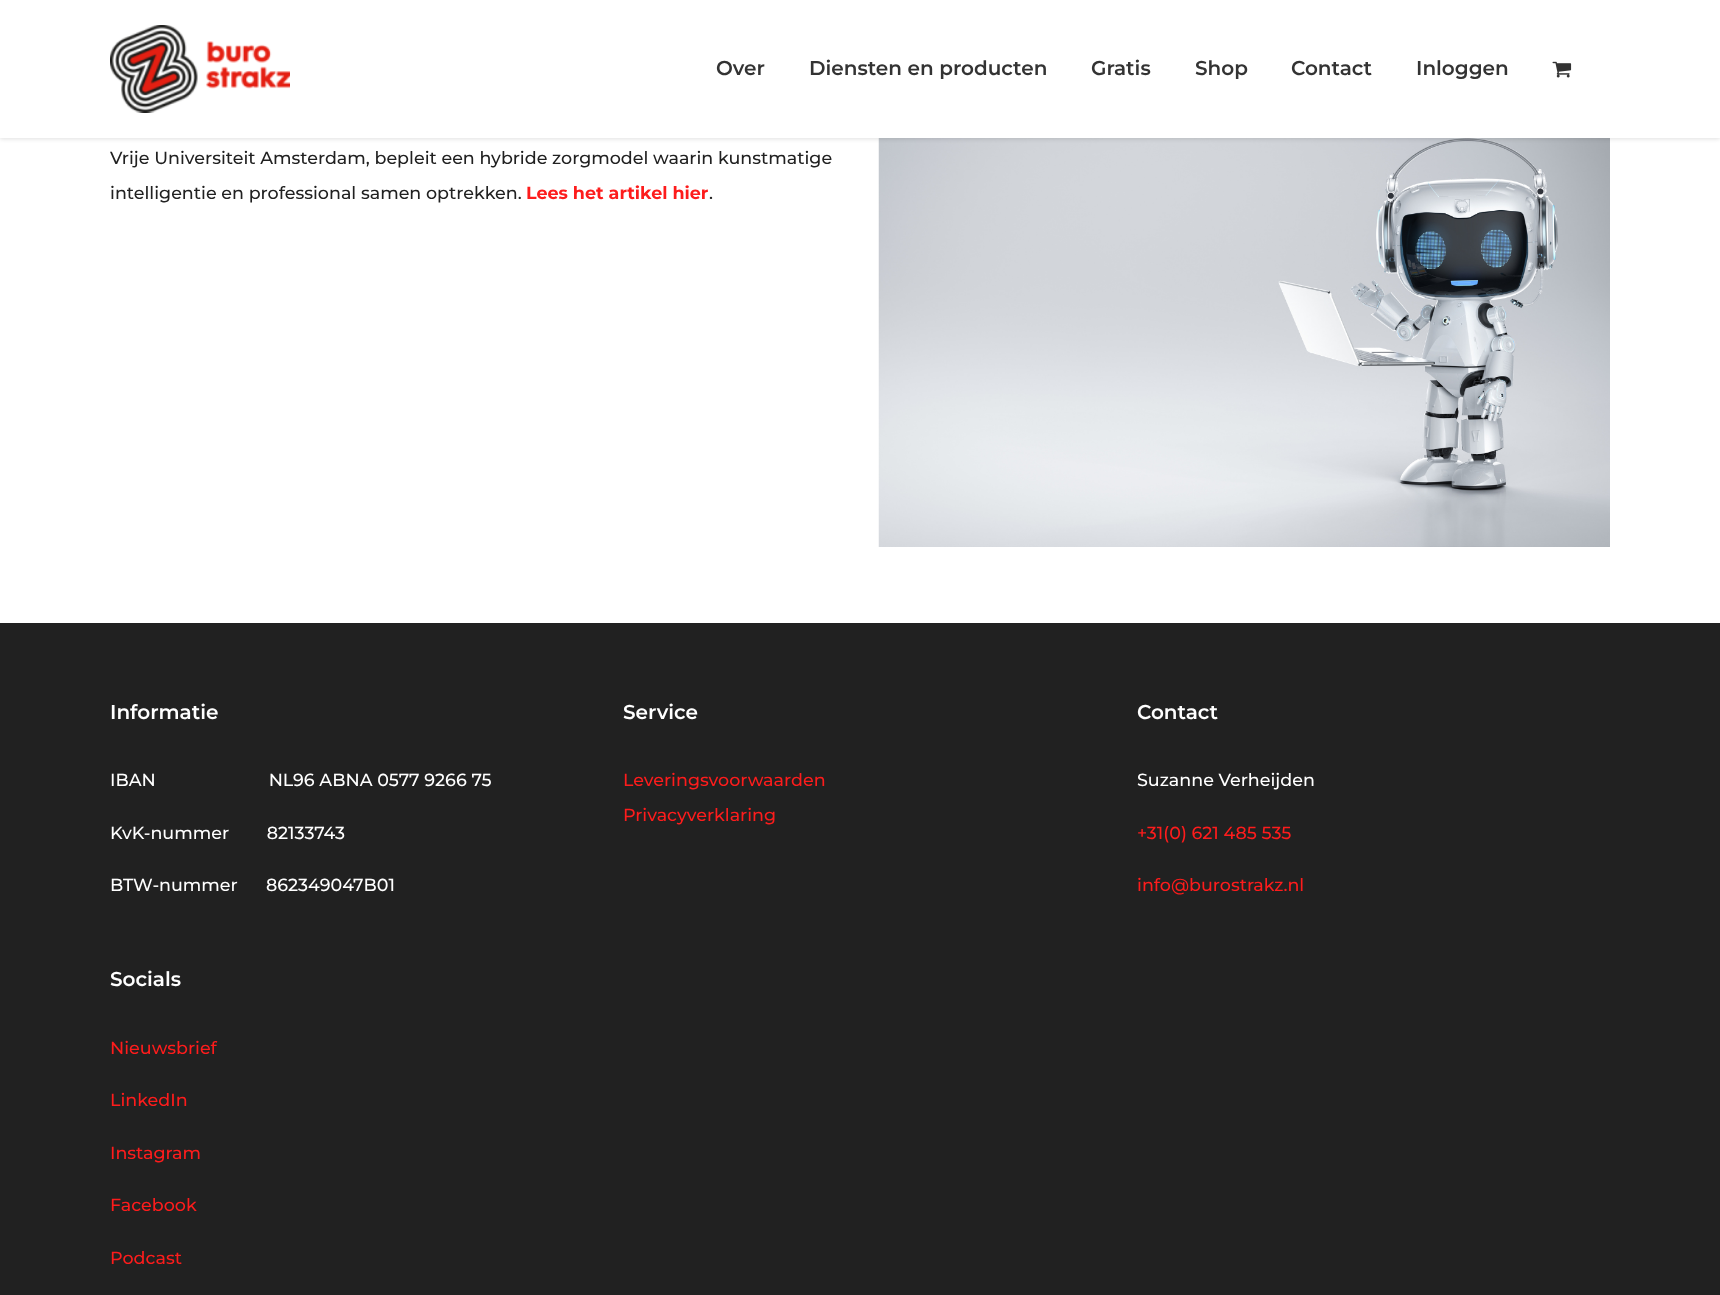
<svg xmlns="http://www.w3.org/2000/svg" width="1720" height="1295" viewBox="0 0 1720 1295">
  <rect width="100%" height="100%" fill="#fff"/>
  <image x="878" y="138" width="732" height="409" href="img/3.png"/>
  <path d="M0 1h1720v138H0z" fill="#0000001f" filter="blur(2px)"/>
  <path d="M0 0h1720v138H0z" fill="#fff"/>
  <image x="110" y="25" width="180" height="88" href="img/1.png"/>
  <image x="1552" y="61" width="20" height="17" href="img/2.png"/>
  <path d="M0 623h1720v672H0z" fill="#212121"/>
  <g font-family="Montserrat" font-size="20" font-weight="600" fill="#333">
    <text x="716" y="75">Over</text>
    <text x="809" y="75">Diensten en producten</text>
    <text x="1091" y="75">Gratis</text>
    <text x="1195" y="75">Shop</text>
    <text x="1291" y="75">Contact</text>
    <text x="1416" y="75">Inloggen</text>
  </g>
  <g font-family="Montserrat" font-size="17.5" font-weight="500" fill="#212121">
    <text x="110" y="164">Vrije Universiteit Amsterdam, bepleit een hybride zorgmodel waarin kunstmatige</text>
    <text x="110" y="199">intelligentie en professional samen optrekken.</text>
  </g>
  <text x="526" y="199" font-family="Montserrat" font-size="17.5" font-weight="bold" fill="#fd1c1c">Lees het artikel hier</text>
  <text x="709" y="199" font-family="Montserrat" font-size="17.5" font-weight="500" fill="#212121">.</text>
  <text x="110" y="719" font-family="Montserrat" font-size="20" font-weight="600" fill="#fff">Informatie</text>
  <g font-family="Montserrat" font-size="17.5" font-weight="500" fill="#fff">
    <text x="110" y="786" xml:space="preserve">IBAN                        NL96 ABNA 0577 9266 75</text>
    <text x="110" y="839" xml:space="preserve">KvK-nummer        82133743</text>
    <text x="110" y="891" xml:space="preserve">BTW-nummer      862349047B01</text>
  </g>
  <text x="110" y="986" font-family="Montserrat" font-size="20" font-weight="600" fill="#fff">Socials</text>
  <g font-family="Montserrat" font-size="17.5" font-weight="500" fill="#fd1c1c">
    <text x="110" y="1054">Nieuwsbrief</text>
    <text x="110" y="1106">LinkedIn</text>
    <text x="110" y="1159">Instagram</text>
    <text x="110" y="1211">Facebook</text>
    <text x="110" y="1264">Podcast</text>
  </g>
  <text x="623" y="719" font-family="Montserrat" font-size="20" font-weight="600" fill="#fff">Service</text>
  <g font-family="Montserrat" font-size="17.5" font-weight="500" fill="#fd1c1c">
    <text x="623" y="786">Leveringsvoorwaarden</text>
    <text x="623" y="821">Privacyverklaring</text>
  </g>
  <text x="1137" y="719" font-family="Montserrat" font-size="20" font-weight="600" fill="#fff">Contact</text>
  <text x="1137" y="786" font-family="Montserrat" font-size="17.5" font-weight="500" fill="#fff">Suzanne Verheijden</text>
  <g font-family="Montserrat" font-size="17.5" font-weight="500" fill="#fd1c1c">
    <text x="1137" y="839">+31(0) 621 485 535</text>
    <text x="1137" y="891">info@burostrakz.nl</text>
  </g>
</svg>
